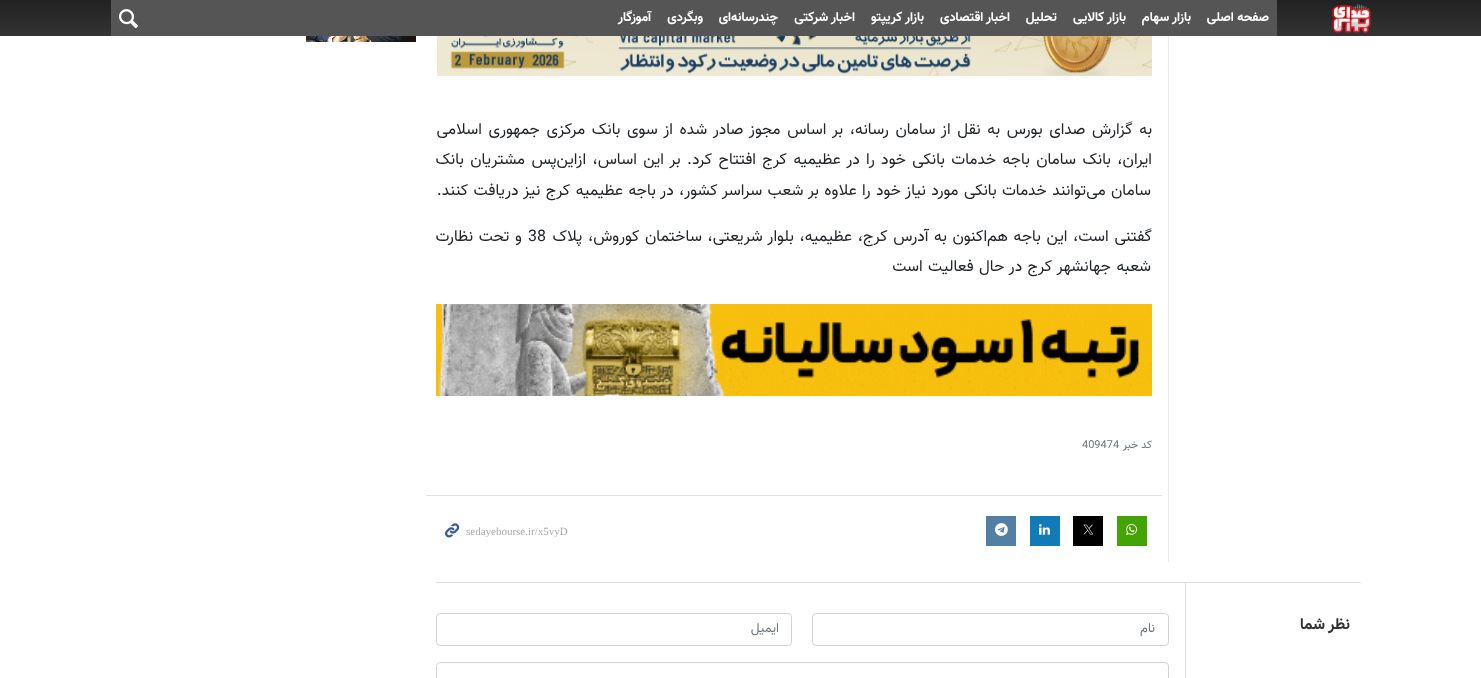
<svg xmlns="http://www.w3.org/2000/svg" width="1481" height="678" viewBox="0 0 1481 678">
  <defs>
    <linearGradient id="g1" gradientUnits="userSpaceOnUse" x1="741" y1="0" x2="741" y2="36"><stop offset="0" stop-color="#222"/><stop offset="1" stop-color="#333"/></linearGradient>
    <clipPath id="clip1"><path d="M466 525h218v12H466z"/></clipPath>
  </defs>
  <rect width="100%" height="100%" fill="#fff"/>
  <path d="M0 0h1481v36H0z" fill="url(#g1)"/>
  <image x="1332" y="3" width="39" height="30" href="img/1.png"/>
  <path d="M111 0h1166v36H111z" fill="#555"/>
  <image x="119" y="9" width="19" height="20" href="img/2.png"/>
  <image x="306" y="36" width="110" height="6" href="img/3.png"/>
  <path d="M1168 36h1v526H1168z" fill="#e9ecef"/>
  <image x="437" y="36" width="715" height="40" href="img/4.png"/>
  <image x="436" y="304" width="716" height="92" href="img/5.png"/>
  <path d="M426 495h736v1H426z" fill="#dee2e6"/>
  <path d="M1117 516h30v30H1117z" fill="#44a305"/>
  <image x="1126" y="524" width="11" height="11" href="img/6.png"/>
  <path d="M1073 516h30v30H1073z" fill="#000"/>
  <image x="1083" y="524" width="11" height="11" href="img/7.png"/>
  <path d="M1030 516h30v30H1030z" fill="#117bb7"/>
  <image x="1039" y="524" width="11" height="11" href="img/8.png"/>
  <path d="M986 516h30v30H986z" fill="#5280a4"/>
  <image x="995" y="523" width="13" height="13" href="img/9.png"/>
  <image x="445" y="523" width="15" height="15" href="img/10.png"/>
  <path d="M436 582h925v1H436z" fill="#ddd"/>
  <path d="M1185 583h1v95H1185z" fill="#ddd"/>
  <rect x="812.5" y="613.5" width="356" height="32" rx="3.5" fill="none" stroke="#ced4da"/>
  <rect x="436.5" y="613.5" width="355" height="32" rx="3.5" fill="none" stroke="#ced4da"/>
  <rect x="436.5" y="662.5" width="732" height="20" rx="3.5" fill="none" stroke="#ced4da"/>
  <g font-family="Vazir" font-size="13" font-weight="bold" direction="rtl" fill="#fff">
    <text x="1269" y="21">صفحه اصلی</text>
    <text x="1191" y="21">بازار سهام</text>
    <text x="1126" y="21">بازار کالایی</text>
    <text x="1057" y="21">تحلیل</text>
    <text x="1010" y="21">اخبار اقتصادی</text>
    <text x="924" y="21">بازار کریپتو</text>
    <text x="855" y="21">اخبار شرکتی</text>
    <text x="778" y="21">چندرسانه‌ای</text>
    <text x="703" y="21">وبگردی</text>
    <text x="651" y="21">آموزگار</text>
  </g>
  <g font-family="Vazir" font-size="16" direction="rtl" fill="#212529">
    <text x="1152" y="134" word-spacing="2.25">به گزارش صدای بورس به نقل از سامان رسانه، بر اساس مجوز صادر شده از سوی بانک مرکزی جمهوری اسلامی</text>
    <text x="1152" y="164" word-spacing="2">ایران، بانک سامان باجه خدمات بانکی خود را در عظیمیه کرج افتتاح کرد. بر این اساس، ازاین‌پس مشتریان بانک</text>
    <text x="1151" y="195" word-spacing="1">سامان می‌توانند خدمات بانکی مورد نیاز خود را علاوه بر شعب سراسر کشور، در باجه عظیمیه کرج نیز دریافت کنند.</text>
    <text x="1152" y="241" word-spacing="1.3">گفتنی است، این باجه هم‌اکنون به آدرس کرج، عظیمیه، بلوار شریعتی، ساختمان کوروش، پلاک</text>
  </g>
  <text x="528" y="241" font-family="Vazir" font-size="16" fill="#212529">38</text>
  <g font-family="Vazir" font-size="16" direction="rtl" fill="#212529">
    <text x="522" y="241" word-spacing="1.3">و تحت نظارت</text>
    <text x="1151" y="271" word-spacing="1">شعبه جهانشهر کرج در حال فعالیت است</text>
  </g>
  <text x="1152" y="448" font-family="Vazir" font-size="11" direction="rtl" fill="#6c757d">کد خبر</text>
  <text x="1082" y="448" font-family="Vazir" font-size="11" fill="#6c757d">409474</text>
  <g clip-path="url(#clip1)">
    <text x="466" y="535" font-family="Liberation Serif" font-size="11" fill="#a9a9a9">sedayebourse.ir/x5vyD</text>
  </g>
  <text x="1350" y="629" font-family="Vazir" font-size="16" font-weight="bold" direction="rtl" fill="#333">نظر شما</text>
  <g font-family="Vazir" font-size="13" direction="rtl" fill="#6c757d">
    <text x="1155" y="632">نام</text>
    <text x="779" y="632">ایمیل</text>
  </g>
</svg>
